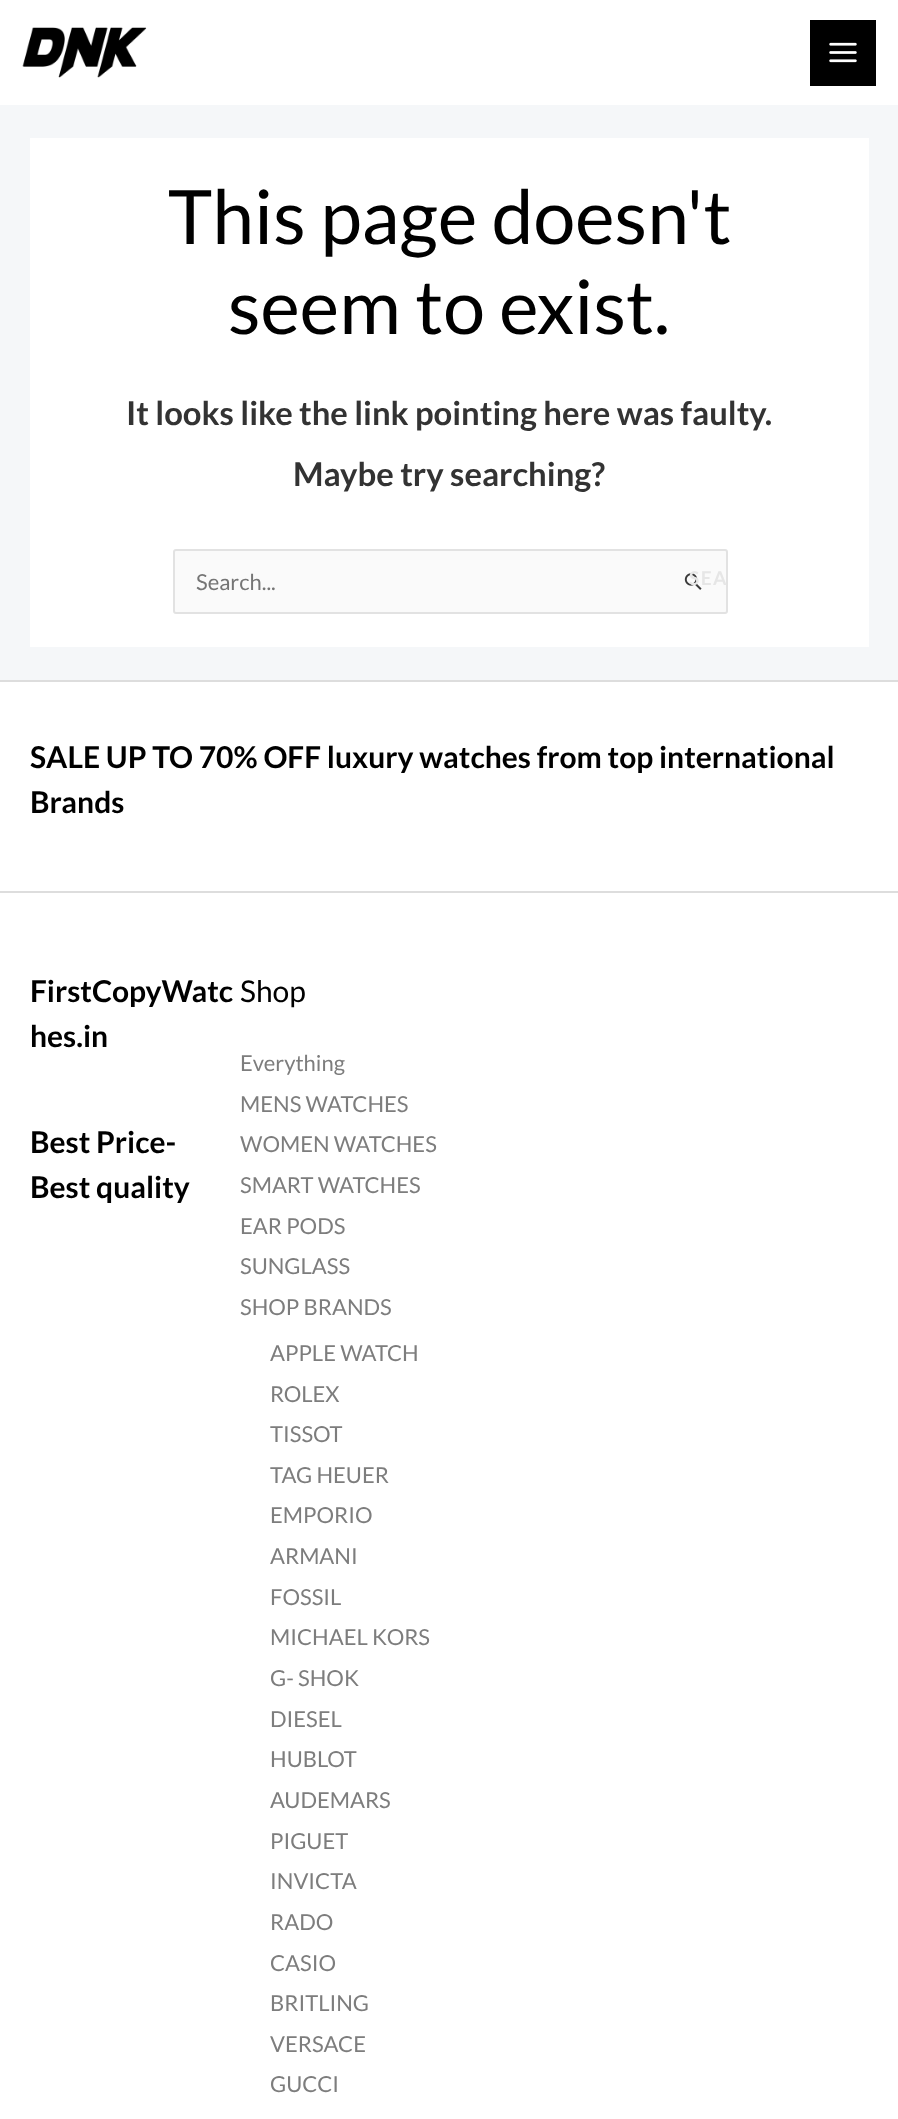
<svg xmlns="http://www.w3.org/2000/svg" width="898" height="2119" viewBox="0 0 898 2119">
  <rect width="100%" height="100%" fill="#f5f7f9"/>
  <path d="M0 0h898v105H0z" fill="#fff"/>
  <image x="22" y="27" width="125" height="51" href="img/1.png"/>
  <path d="M810 20h66v66H810z" fill="#000"/>
  <image x="829" y="42" width="28" height="21" href="img/2.png"/>
  <path d="M30 138h839v509H30z" fill="#fff"/>
  <rect x="174" y="550" width="553" height="63" rx="2" fill="#fafafa" stroke="#e2e2e2" stroke-width="2"/>
  <image x="684" y="573" width="18" height="17" href="img/3.png"/>
  <path d="M0 682h898v1437H0z" fill="#fff"/>
  <path d="M0 680h898v2H0z" fill="#ddd"/>
  <path d="M0 891h898v2H0z" fill="#ddd"/>
  <g font-family="Lato" font-size="75" fill="#000">
    <text x="168" y="244">This page doesn't</text>
    <text x="228" y="334">seem to exist.</text>
  </g>
  <g font-family="Lato" font-size="32.8" font-weight="bold" fill="#333">
    <text x="126" y="425">It looks like the link pointing here was faulty.</text>
    <text x="293" y="486">Maybe try searching?</text>
  </g>
  <text x="196" y="590" font-family="Lato" font-size="22" fill="#757575">Search...</text>
  <text x="689" y="585" font-family="Lato" font-size="19" font-weight="bold" letter-spacing="1.5" fill="#e6e6e6">SEA</text>
  <g font-family="Lato" font-size="30" font-weight="bold" fill="#000">
    <text x="30" y="768">SALE UP TO 70% OFF luxury watches from top international</text>
    <text x="30" y="813">Brands</text>
    <text x="30" y="1002">FirstCopyWatc</text>
    <text x="30" y="1047">hes.in</text>
    <text x="30" y="1153">Best Price-</text>
    <text x="30" y="1198">Best quality</text>
  </g>
  <text x="240" y="1002" font-family="Lato" font-size="30" fill="#000">Shop</text>
  <g font-family="Lato" font-size="22" fill="#7d7d7d">
    <text x="240" y="1071">Everything</text>
    <text x="240" y="1112">MENS WATCHES</text>
    <text x="240" y="1152">WOMEN WATCHES</text>
    <text x="240" y="1193">SMART WATCHES</text>
    <text x="240" y="1234">EAR PODS</text>
    <text x="240" y="1274">SUNGLASS</text>
    <text x="240" y="1315">SHOP BRANDS</text>
    <text x="270" y="1361">APPLE WATCH</text>
    <text x="270" y="1402">ROLEX</text>
    <text x="270" y="1442">TISSOT</text>
    <text x="270" y="1483">TAG HEUER</text>
    <text x="270" y="1523">EMPORIO</text>
    <text x="270" y="1564">ARMANI</text>
    <text x="270" y="1605">FOSSIL</text>
    <text x="270" y="1645">MICHAEL KORS</text>
    <text x="270" y="1686">G- SHOK</text>
    <text x="270" y="1727">DIESEL</text>
    <text x="270" y="1767">HUBLOT</text>
    <text x="270" y="1808">AUDEMARS</text>
    <text x="270" y="1849">PIGUET</text>
    <text x="270" y="1889">INVICTA</text>
    <text x="270" y="1930">RADO</text>
    <text x="270" y="1971">CASIO</text>
    <text x="270" y="2011">BRITLING</text>
    <text x="270" y="2052">VERSACE</text>
    <text x="270" y="2092">GUCCI</text>
  </g>
</svg>
